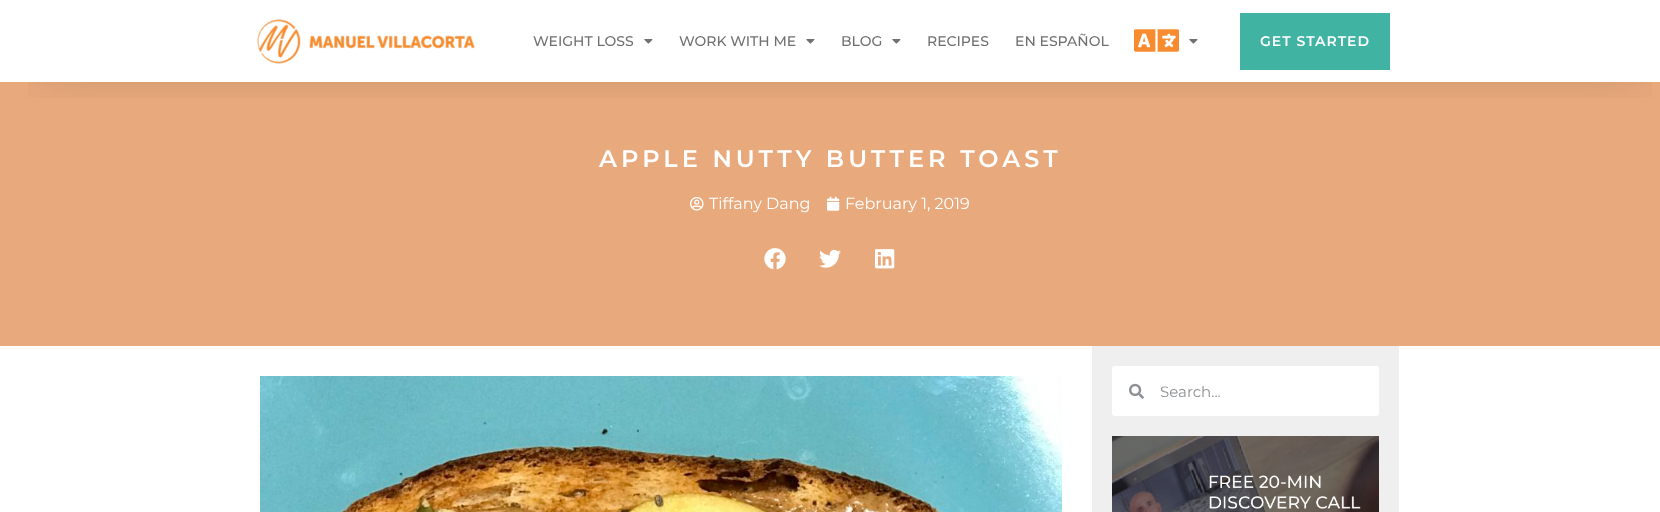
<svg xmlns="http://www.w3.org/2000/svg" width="1660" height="512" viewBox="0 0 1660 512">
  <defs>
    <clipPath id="clip1"><path d="M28 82h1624v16H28z"/></clipPath>
  </defs>
  <rect width="100%" height="100%" fill="#fff"/>
  <path d="M0 82h1660v264H0z" fill="#e8a97c"/>
  <g clip-path="url(#clip1)">
    <path d="M36 27h1608v30H36z" fill="#00000057" filter="blur(27px)"/>
  </g>
  <image x="257" y="19" width="218" height="45" href="img/1.png"/>
  <image x="644" y="39" width="9" height="5" href="img/2.png"/>
  <image x="806" y="39" width="9" height="5" href="img/2.png"/>
  <image x="892" y="39" width="9" height="5" href="img/2.png"/>
  <image x="1134" y="29" width="45" height="23" href="img/3.png"/>
  <image x="1189" y="39" width="9" height="5" href="img/2.png"/>
  <path d="M1240 13h150v57H1240z" fill="#41b3a3"/>
  <image x="690" y="197" width="14" height="14" href="img/4.png"/>
  <image x="827" y="196" width="13" height="15" href="img/5.png"/>
  <image x="764" y="248" width="22" height="22" href="img/6.png"/>
  <image x="819" y="249" width="22" height="19" href="img/7.png"/>
  <image x="875" y="249" width="20" height="20" href="img/8.png"/>
  <image x="260" y="376" width="802" height="136" href="img/9.png"/>
  <path d="M1092 346h307v166H1092z" fill="#efefef"/>
  <rect x="1112" y="366" width="267" height="50" rx="3" fill="#fff"/>
  <image x="1129" y="383" width="15" height="16" href="img/10.png"/>
  <image x="1112" y="436" width="267" height="76" href="img/11.png"/>
  <g font-family="Montserrat" font-size="14" font-weight="500" fill="#707070">
    <text x="533" y="46">WEIGHT LOSS</text>
    <text x="679" y="46">WORK WITH ME</text>
    <text x="841" y="46">BLOG</text>
    <text x="927" y="46">RECIPES</text>
    <text x="1015" y="46">EN ESPAÑOL</text>
  </g>
  <text x="1260" y="46" font-family="Montserrat" font-size="14" font-weight="600" letter-spacing="1" fill="#fff">GET STARTED</text>
  <text x="599" y="167" font-family="Montserrat" font-size="24" font-weight="600" letter-spacing="4" fill="#fff">APPLE NUTTY BUTTER TOAST</text>
  <g font-family="Montserrat" font-size="16" fill="#fff">
    <text x="709" y="209">Tiffany Dang</text>
    <text x="845" y="209">February 1, 2019</text>
  </g>
  <text x="1160" y="397" font-family="Montserrat" font-size="15" fill="#8c8f93">Search...</text>
</svg>
